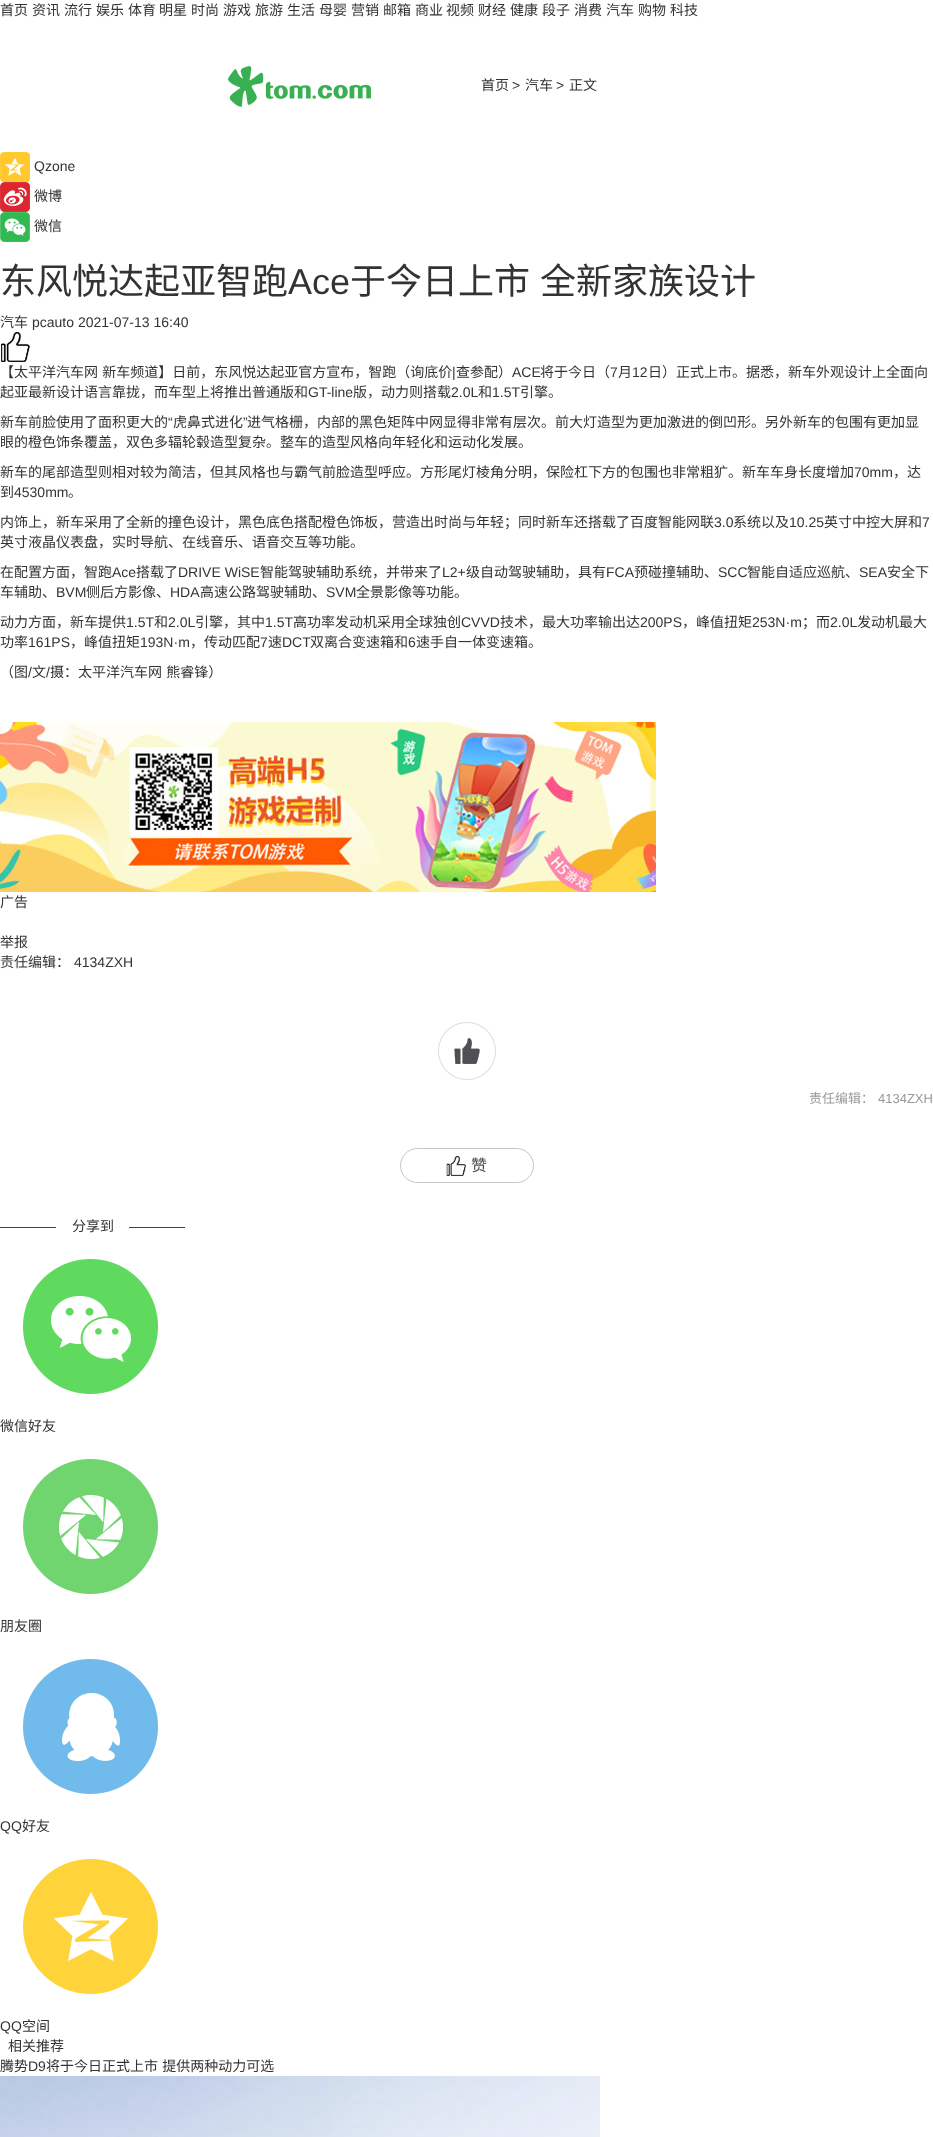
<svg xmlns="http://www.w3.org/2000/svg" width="933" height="2137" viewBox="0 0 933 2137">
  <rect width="100%" height="100%" fill="#fff"/>
  <image x="228" y="66" width="143" height="41" href="img/1.png"/>
  <image x="0" y="152" width="30" height="30" href="img/2.png"/>
  <image x="0" y="182" width="30" height="30" href="img/3.png"/>
  <image x="0" y="212" width="30" height="30" href="img/4.png"/>
  <image x="1" y="332" width="29" height="30" href="img/5.png"/>
  <image x="0" y="722" width="656" height="170" href="img/6.png"/>
  <image x="438" y="1022" width="58" height="58" href="img/7.png"/>
  <rect x="400.5" y="1148.5" width="133" height="34" rx="17" fill="none" stroke="#c5c5c5"/>
  <image x="446" y="1156" width="20" height="20" href="img/8.png"/>
  <image x="23" y="1259" width="135" height="135" href="img/9.png"/>
  <image x="23" y="1459" width="135" height="135" href="img/10.png"/>
  <image x="23" y="1659" width="135" height="135" href="img/11.png"/>
  <image x="23" y="1859" width="135" height="135" href="img/12.png"/>
  <image x="0" y="2076" width="600" height="61" href="img/13.png"/>
  <g font-family="Noto Sans CJK SC" font-size="14" fill="#333">
    <text x="0" y="15">首页</text>
    <text x="32" y="15">资讯</text>
    <text x="64" y="15">流行</text>
    <text x="96" y="15">娱乐</text>
    <text x="128" y="15">体育</text>
    <text x="159" y="15">明星</text>
    <text x="191" y="15">时尚</text>
    <text x="223" y="15">游戏</text>
    <text x="255" y="15">旅游</text>
    <text x="287" y="15">生活</text>
    <text x="319" y="15">母婴</text>
    <text x="351" y="15">营销</text>
    <text x="383" y="15">邮箱</text>
    <text x="415" y="15">商业</text>
    <text x="446" y="15">视频</text>
    <text x="478" y="15">财经</text>
    <text x="510" y="15">健康</text>
    <text x="542" y="15">段子</text>
    <text x="574" y="15">消费</text>
    <text x="606" y="15">汽车</text>
    <text x="638" y="15">购物</text>
    <text x="670" y="15">科技</text>
    <text x="481" y="90">首页</text>
  </g>
  <text x="512" y="90" font-family="Liberation Sans" font-size="14" fill="#333">&gt;</text>
  <text x="525" y="90" font-family="Noto Sans CJK SC" font-size="14" fill="#333">汽车</text>
  <text x="556" y="90" font-family="Liberation Sans" font-size="14" fill="#333">&gt;</text>
  <text x="569" y="90" font-family="Noto Sans CJK SC" font-size="14" fill="#333">正文</text>
  <text x="34" y="171" font-family="Liberation Sans" font-size="14" fill="#333">Qzone</text>
  <g font-family="Noto Sans CJK SC" font-size="14" fill="#333">
    <text x="34" y="201">微博</text>
    <text x="34" y="231">微信</text>
  </g>
  <text x="0" y="294" font-family="Noto Sans CJK SC" font-size="36" fill="#333">东风悦达起亚智跑</text>
  <text x="288" y="294" font-family="Liberation Sans" font-size="36" fill="#333">Ace</text>
  <text x="350" y="294" word-spacing="2" font-family="Noto Sans CJK SC" font-size="36" fill="#333">于今日上市 全新家族设计</text>
  <text x="0" y="327" font-family="Noto Sans CJK SC" font-size="14" fill="#333">汽车</text>
  <text x="32" y="327" font-family="Liberation Sans" font-size="14" fill="#333">pcauto 2021-07-13 16:40</text>
  <text x="0" y="377" word-spacing="1" font-family="Noto Sans CJK SC" font-size="14" fill="#333">【太平洋汽车网 新车频道】日前，东风悦达起亚官方宣布，智跑（询底价</text>
  <text x="452" y="377" font-family="Liberation Sans" font-size="14" fill="#333">|</text>
  <text x="456" y="377" font-family="Noto Sans CJK SC" font-size="14" fill="#333">查参配）</text>
  <text x="512" y="377" font-family="Liberation Sans" font-size="14" fill="#333">ACE</text>
  <text x="540" y="377" font-family="Noto Sans CJK SC" font-size="14" fill="#333">将于今日（</text>
  <text x="610" y="377" font-family="Liberation Sans" font-size="14" fill="#333">7</text>
  <text x="618" y="377" font-family="Noto Sans CJK SC" font-size="14" fill="#333">月</text>
  <text x="632" y="377" font-family="Liberation Sans" font-size="14" fill="#333">12</text>
  <g font-family="Noto Sans CJK SC" font-size="14" fill="#333">
    <text x="648" y="377">日）正式上市。据悉，新车外观设计上全面向</text>
    <text x="0" y="397">起亚最新设计语言靠拢，而车型上将推出普通版和</text>
  </g>
  <text x="308" y="397" font-family="Liberation Sans" font-size="14" fill="#333">GT-line</text>
  <text x="353" y="397" font-family="Noto Sans CJK SC" font-size="14" fill="#333">版，动力则搭载</text>
  <text x="451" y="397" font-family="Liberation Sans" font-size="14" fill="#333">2.0L</text>
  <text x="478" y="397" font-family="Noto Sans CJK SC" font-size="14" fill="#333">和</text>
  <text x="492" y="397" font-family="Liberation Sans" font-size="14" fill="#333">1.5T</text>
  <g font-family="Noto Sans CJK SC" font-size="14" fill="#333">
    <text x="520" y="397">引擎。</text>
    <text x="0" y="427">新车前脸使用了面积更大的</text>
  </g>
  <text x="168" y="427" font-family="Liberation Sans" font-size="14" fill="#333">“</text>
  <text x="173" y="427" font-family="Noto Sans CJK SC" font-size="14" fill="#333">虎鼻式进化</text>
  <text x="243" y="427" font-family="Liberation Sans" font-size="14" fill="#333">”</text>
  <g font-family="Noto Sans CJK SC" font-size="14" fill="#333">
    <text x="247" y="427">进气格栅，内部的黑色矩阵中网显得非常有层次。前大灯造型为更加激进的倒凹形。另外新车的包围有更加显</text>
    <text x="0" y="447">眼的橙色饰条覆盖，双色多辐轮毂造型复杂。整车的造型风格向年轻化和运动化发展。</text>
    <text x="0" y="477">新车的尾部造型则相对较为简洁，但其风格也与霸气前脸造型呼应。方形尾灯棱角分明，保险杠下方的包围也非常粗犷。新车车身长度增加</text>
  </g>
  <text x="854" y="477" font-family="Liberation Sans" font-size="14" fill="#333">70mm</text>
  <g font-family="Noto Sans CJK SC" font-size="14" fill="#333">
    <text x="893" y="477">，达</text>
    <text x="0" y="497">到</text>
  </g>
  <text x="14" y="497" font-family="Liberation Sans" font-size="14" fill="#333">4530mm</text>
  <g font-family="Noto Sans CJK SC" font-size="14" fill="#333">
    <text x="68" y="497">。</text>
    <text x="0" y="527">内饰上，新车采用了全新的撞色设计，黑色底色搭配橙色饰板，营造出时尚与年轻；同时新车还搭载了百度智能网联</text>
  </g>
  <text x="714" y="527" font-family="Liberation Sans" font-size="14" fill="#333">3.0</text>
  <text x="733" y="527" font-family="Noto Sans CJK SC" font-size="14" fill="#333">系统以及</text>
  <text x="789" y="527" font-family="Liberation Sans" font-size="14" fill="#333">10.25</text>
  <text x="824" y="527" font-family="Noto Sans CJK SC" font-size="14" fill="#333">英寸中控大屏和</text>
  <text x="922" y="527" font-family="Liberation Sans" font-size="14" fill="#333">7</text>
  <g font-family="Noto Sans CJK SC" font-size="14" fill="#333">
    <text x="0" y="547">英寸液晶仪表盘，实时导航、在线音乐、语音交互等功能。</text>
    <text x="0" y="577">在配置方面，智跑</text>
  </g>
  <text x="112" y="577" font-family="Liberation Sans" font-size="14" fill="#333">Ace</text>
  <text x="136" y="577" font-family="Noto Sans CJK SC" font-size="14" fill="#333">搭载了</text>
  <text x="178" y="577" font-family="Liberation Sans" font-size="14" fill="#333">DRIVE WiSE</text>
  <text x="260" y="577" font-family="Noto Sans CJK SC" font-size="14" fill="#333">智能驾驶辅助系统，并带来了</text>
  <text x="442" y="577" font-family="Liberation Sans" font-size="14" fill="#333">L2+</text>
  <text x="466" y="577" font-family="Noto Sans CJK SC" font-size="14" fill="#333">级自动驾驶辅助，具有</text>
  <text x="606" y="577" font-family="Liberation Sans" font-size="14" fill="#333">FCA</text>
  <text x="634" y="577" font-family="Noto Sans CJK SC" font-size="14" fill="#333">预碰撞辅助、</text>
  <text x="718" y="577" font-family="Liberation Sans" font-size="14" fill="#333">SCC</text>
  <text x="747" y="577" font-family="Noto Sans CJK SC" font-size="14" fill="#333">智能自适应巡航、</text>
  <text x="859" y="577" font-family="Liberation Sans" font-size="14" fill="#333">SEA</text>
  <g font-family="Noto Sans CJK SC" font-size="14" fill="#333">
    <text x="887" y="577">安全下</text>
    <text x="0" y="597">车辅助、</text>
  </g>
  <text x="56" y="597" font-family="Liberation Sans" font-size="14" fill="#333">BVM</text>
  <text x="86" y="597" font-family="Noto Sans CJK SC" font-size="14" fill="#333">侧后方影像、</text>
  <text x="170" y="597" font-family="Liberation Sans" font-size="14" fill="#333">HDA</text>
  <text x="200" y="597" font-family="Noto Sans CJK SC" font-size="14" fill="#333">高速公路驾驶辅助、</text>
  <text x="326" y="597" font-family="Liberation Sans" font-size="14" fill="#333">SVM</text>
  <g font-family="Noto Sans CJK SC" font-size="14" fill="#333">
    <text x="356" y="597">全景影像等功能。</text>
    <text x="0" y="627">动力方面，新车提供</text>
  </g>
  <text x="126" y="627" font-family="Liberation Sans" font-size="14" fill="#333">1.5T</text>
  <text x="154" y="627" font-family="Noto Sans CJK SC" font-size="14" fill="#333">和</text>
  <text x="168" y="627" font-family="Liberation Sans" font-size="14" fill="#333">2.0L</text>
  <text x="195" y="627" font-family="Noto Sans CJK SC" font-size="14" fill="#333">引擎，其中</text>
  <text x="265" y="627" font-family="Liberation Sans" font-size="14" fill="#333">1.5T</text>
  <text x="293" y="627" font-family="Noto Sans CJK SC" font-size="14" fill="#333">高功率发动机采用全球独创</text>
  <text x="461" y="627" font-family="Liberation Sans" font-size="14" fill="#333">CVVD</text>
  <text x="500" y="627" font-family="Noto Sans CJK SC" font-size="14" fill="#333">技术，最大功率输出达</text>
  <text x="640" y="627" font-family="Liberation Sans" font-size="14" fill="#333">200PS</text>
  <text x="682" y="627" font-family="Noto Sans CJK SC" font-size="14" fill="#333">，峰值扭矩</text>
  <text x="752" y="627" font-family="Liberation Sans" font-size="14" fill="#333">253N·m</text>
  <text x="802" y="627" font-family="Noto Sans CJK SC" font-size="14" fill="#333">；而</text>
  <text x="830" y="627" font-family="Liberation Sans" font-size="14" fill="#333">2.0L</text>
  <g font-family="Noto Sans CJK SC" font-size="14" fill="#333">
    <text x="857" y="627">发动机最大</text>
    <text x="0" y="647">功率</text>
  </g>
  <text x="28" y="647" font-family="Liberation Sans" font-size="14" fill="#333">161PS</text>
  <text x="70" y="647" font-family="Noto Sans CJK SC" font-size="14" fill="#333">，峰值扭矩</text>
  <text x="140" y="647" font-family="Liberation Sans" font-size="14" fill="#333">193N·m</text>
  <text x="190" y="647" font-family="Noto Sans CJK SC" font-size="14" fill="#333">，传动匹配</text>
  <text x="260" y="647" font-family="Liberation Sans" font-size="14" fill="#333">7</text>
  <text x="268" y="647" font-family="Noto Sans CJK SC" font-size="14" fill="#333">速</text>
  <text x="282" y="647" font-family="Liberation Sans" font-size="14" fill="#333">DCT</text>
  <text x="310" y="647" font-family="Noto Sans CJK SC" font-size="14" fill="#333">双离合变速箱和</text>
  <text x="408" y="647" font-family="Liberation Sans" font-size="14" fill="#333">6</text>
  <g font-family="Noto Sans CJK SC" font-size="14" fill="#333">
    <text x="416" y="647">速手自一体变速箱。</text>
    <text x="0" y="677">（图</text>
  </g>
  <text x="28" y="677" font-family="Liberation Sans" font-size="14" fill="#333">/</text>
  <text x="32" y="677" font-family="Noto Sans CJK SC" font-size="14" fill="#333">文</text>
  <text x="46" y="677" font-family="Liberation Sans" font-size="14" fill="#333">/</text>
  <g font-family="Noto Sans CJK SC" font-size="14" fill="#333">
    <text x="50" y="677" word-spacing="1">摄：太平洋汽车网 熊睿锋）</text>
    <text x="0" y="907">广告</text>
    <text x="0" y="947">举报</text>
    <text x="0" y="967">责任编辑：</text>
  </g>
  <text x="74" y="967" font-family="Liberation Sans" font-size="14" fill="#333">4134ZXH</text>
  <text x="809" y="1103" font-family="Noto Sans CJK SC" font-size="13" fill="#999">责任编辑：</text>
  <text x="878" y="1103" font-family="Liberation Sans" font-size="13" fill="#999">4134ZXH</text>
  <text x="471" y="1171" font-family="Noto Sans CJK SC" font-size="16" fill="#4f5054">赞</text>
  <text x="0" y="1231" font-family="Liberation Sans" font-size="14" fill="#333">————</text>
  <text x="72" y="1231" font-family="Noto Sans CJK SC" font-size="14" fill="#333">分享到</text>
  <text x="129" y="1231" font-family="Liberation Sans" font-size="14" fill="#333">————</text>
  <g font-family="Noto Sans CJK SC" font-size="14" fill="#333">
    <text x="0" y="1431">微信好友</text>
    <text x="0" y="1631">朋友圈</text>
  </g>
  <text x="0" y="1831" font-family="Liberation Sans" font-size="14" fill="#333">QQ</text>
  <text x="22" y="1831" font-family="Noto Sans CJK SC" font-size="14" fill="#333">好友</text>
  <text x="0" y="2031" font-family="Liberation Sans" font-size="14" fill="#333">QQ</text>
  <g font-family="Noto Sans CJK SC" font-size="14" fill="#333">
    <text x="22" y="2031">空间</text>
    <text x="8" y="2051">相关推荐</text>
    <text x="0" y="2071">腾势</text>
  </g>
  <text x="28" y="2071" font-family="Liberation Sans" font-size="14" fill="#333">D9</text>
  <text x="46" y="2071" word-spacing="1" font-family="Noto Sans CJK SC" font-size="14" fill="#333">将于今日正式上市 提供两种动力可选</text>
</svg>
